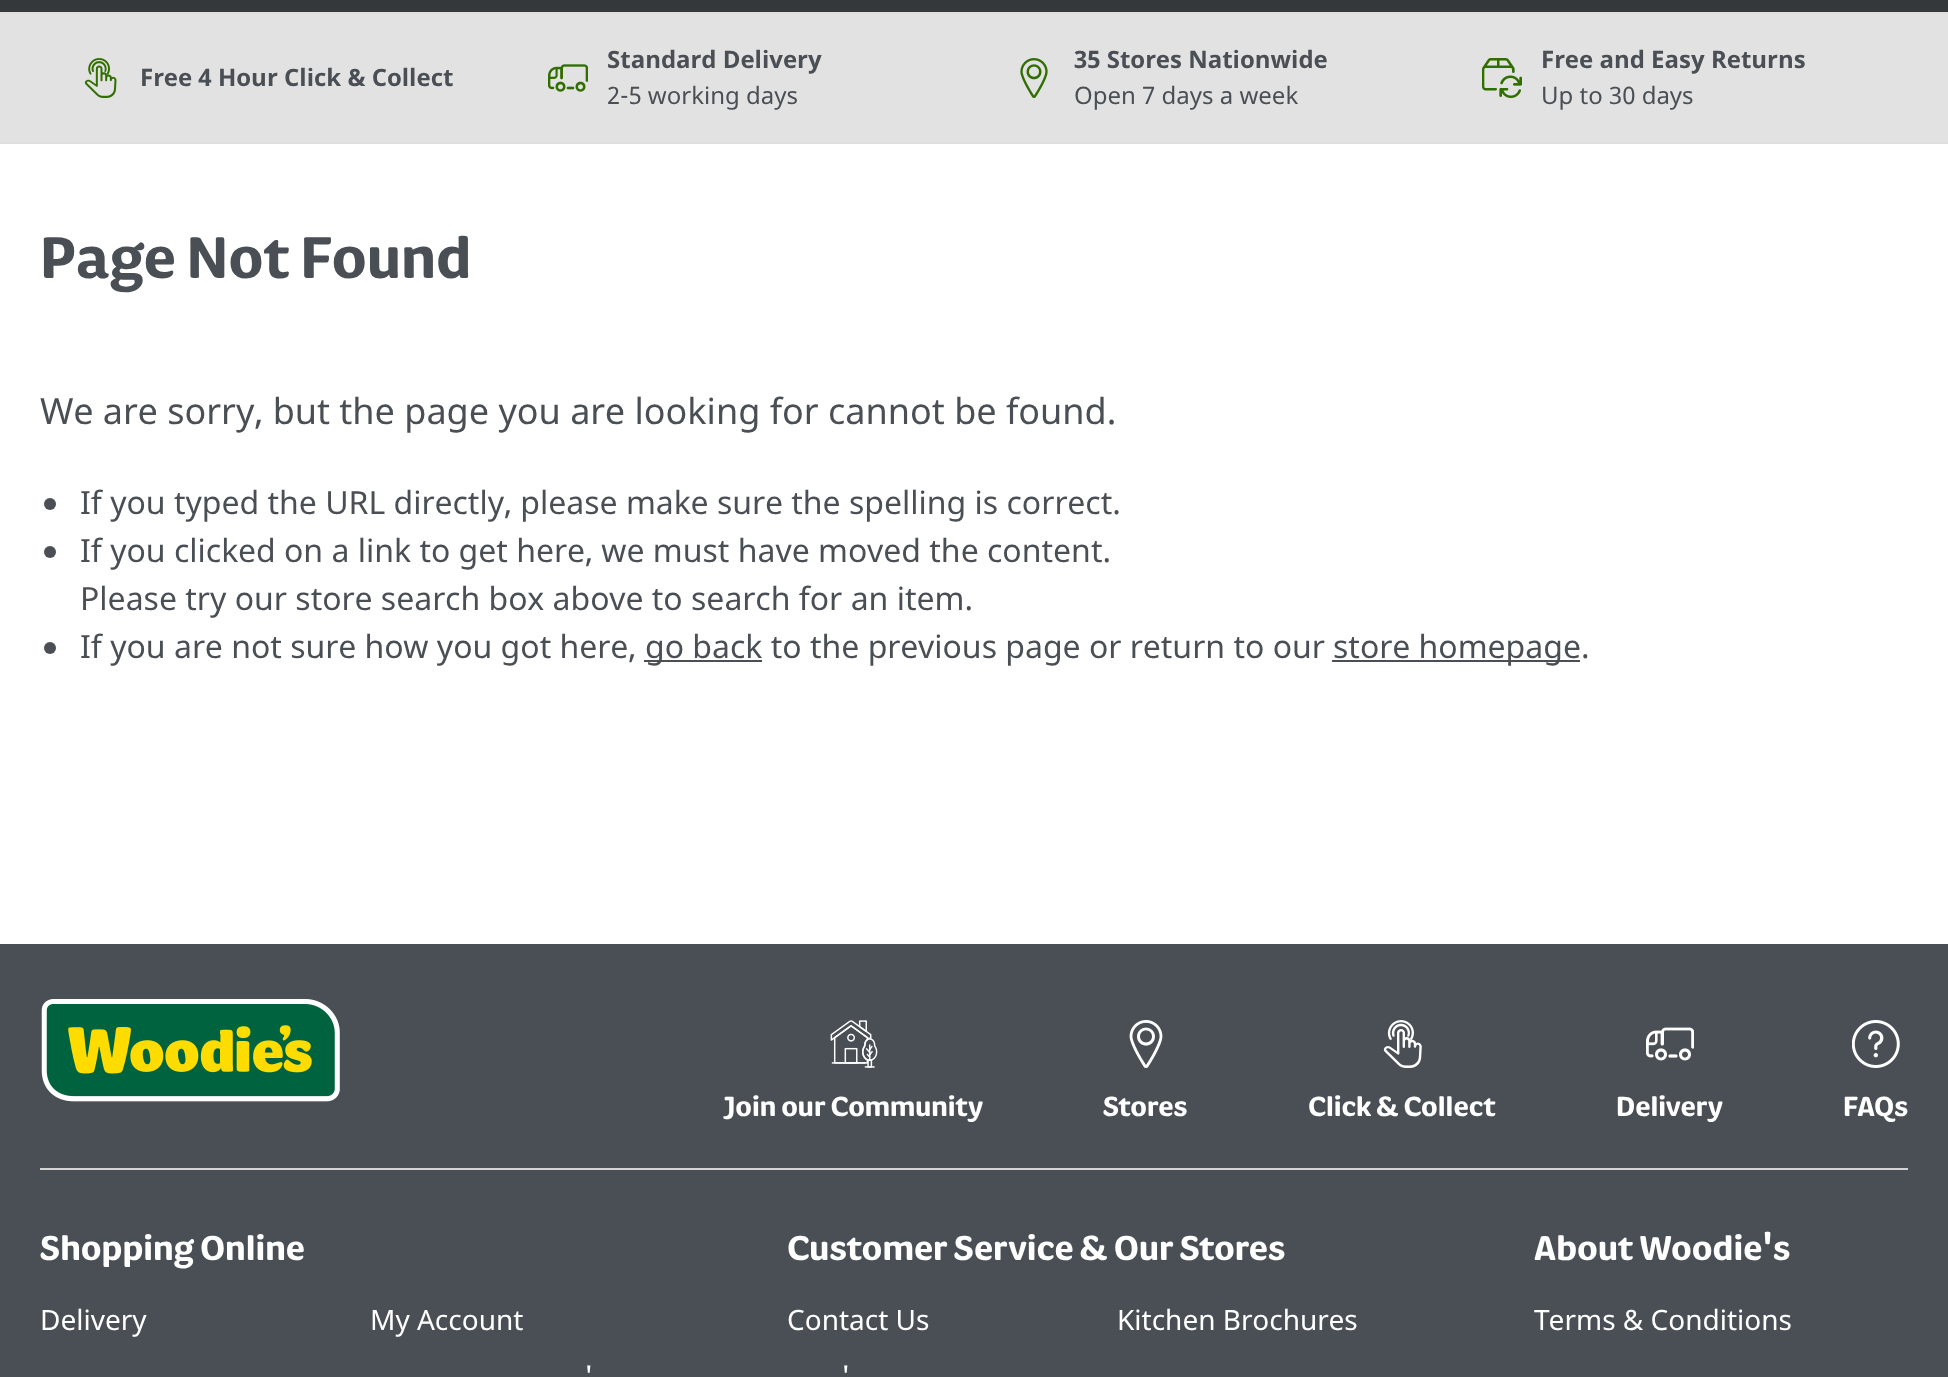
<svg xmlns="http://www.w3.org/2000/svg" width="1948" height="1377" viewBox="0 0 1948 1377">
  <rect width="100%" height="100%" fill="#fff"/>
  <path d="M0 0h1948v12H0z" fill="#35383a"/>
  <path d="M0 14h1948v128H0z" fill="#e2e2e2"/>
  <path d="M0 12h1948v2H0z" fill="#dfdfdf"/>
  <path d="M0 142h1948v2H0z" fill="#dfdfdf"/>
  <image x="84" y="58" width="33" height="40" href="img/1.png"/>
  <image x="548" y="64" width="40" height="28" href="img/2.png"/>
  <image x="1020" y="58" width="28" height="40" href="img/3.png"/>
  <image x="1482" y="58" width="40" height="40" href="img/4.png"/>
  <circle cx="50" cy="504" r="6" fill="#494f54"/>
  <circle cx="50" cy="552" r="6" fill="#494f54"/>
  <circle cx="50" cy="648" r="6" fill="#494f54"/>
  <path d="M644 660h118v2H644z" fill="#494f54"/>
  <path d="M1332 660h248v2H1332z" fill="#494f54"/>
  <path d="M0 944h1948v433H0z" fill="#494f54"/>
  <path d="M40 1168h1868v2H40z" fill="#d4d4d4"/>
  <image x="41" y="999" width="299" height="103" href="img/5.png"/>
  <image x="830" y="1020" width="48" height="48" href="img/6.png"/>
  <image x="1129" y="1020" width="34" height="48" href="img/7.png"/>
  <image x="1383" y="1020" width="39" height="48" href="img/8.png"/>
  <image x="1646" y="1027" width="48" height="34" href="img/9.png"/>
  <image x="1852" y="1020" width="48" height="48" href="img/10.png"/>
  <g font-family="Noto Sans" font-size="24" font-weight="bold" fill="#494f54">
    <text x="140" y="86">Free 4 Hour Click &amp; Collect</text>
    <text x="607" y="68">Standard Delivery</text>
  </g>
  <text x="607" y="104" font-family="Noto Sans" font-size="24" fill="#494f54">2-5 working days</text>
  <text x="1074" y="68" font-family="Noto Sans" font-size="24" font-weight="bold" fill="#494f54">35 Stores Nationwide</text>
  <text x="1074" y="104" font-family="Noto Sans" font-size="24" fill="#494f54">Open 7 days a week</text>
  <text x="1541" y="68" font-family="Noto Sans" font-size="24" font-weight="bold" fill="#494f54">Free and Easy Returns</text>
  <text x="1541" y="104" font-family="Noto Sans" font-size="24" fill="#494f54">Up to 30 days</text>
  <text x="40" y="278" font-family="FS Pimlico" font-size="68" font-weight="bold" fill="#494f54">Page Not Found</text>
  <text x="40" y="424" font-family="Noto Sans" font-size="36" fill="#494f54">We are sorry, but the page you are looking for cannot be found.</text>
  <g font-family="Noto Sans" font-size="32" fill="#494f54">
    <text x="80" y="514">If you typed the URL directly, please make sure the spelling is correct.</text>
    <text x="80" y="562">If you clicked on a link to get here, we must have moved the content.</text>
    <text x="80" y="610">Please try our store search box above to search for an item.</text>
    <text x="80" y="658">If you are not sure how you got here,</text>
    <text x="645" y="658">go back to the previous page or return to our</text>
    <text x="1333" y="658">store homepage.</text>
  </g>
  <g font-family="FS Pimlico" font-size="32" font-weight="bold" fill="#fff">
    <text x="723" y="1116">Join our Community</text>
    <text x="1103" y="1116">Stores</text>
    <text x="1308" y="1116">Click &amp; Collect</text>
    <text x="1616" y="1116">Delivery</text>
    <text x="1843" y="1116">FAQs</text>
  </g>
  <text x="40" y="1260" font-family="FS Pimlico" font-size="40" font-weight="bold" fill="#fff">Shopping Online</text>
  <g font-family="Noto Sans" font-size="28" fill="#fff">
    <text x="40" y="1330">Delivery</text>
    <text x="370" y="1330">My Account</text>
    <text x="584" y="1386">'</text>
  </g>
  <text x="787" y="1260" font-family="FS Pimlico" font-size="40" font-weight="bold" fill="#fff">Customer Service &amp; Our Stores</text>
  <g font-family="Noto Sans" font-size="28" fill="#fff">
    <text x="787" y="1330">Contact Us</text>
    <text x="1117" y="1330">Kitchen Brochures</text>
    <text x="841" y="1386">'</text>
  </g>
  <text x="1534" y="1260" font-family="FS Pimlico" font-size="40" font-weight="bold" fill="#fff">About Woodie's</text>
  <text x="1534" y="1330" font-family="Noto Sans" font-size="28" fill="#fff">Terms &amp; Conditions</text>
</svg>
